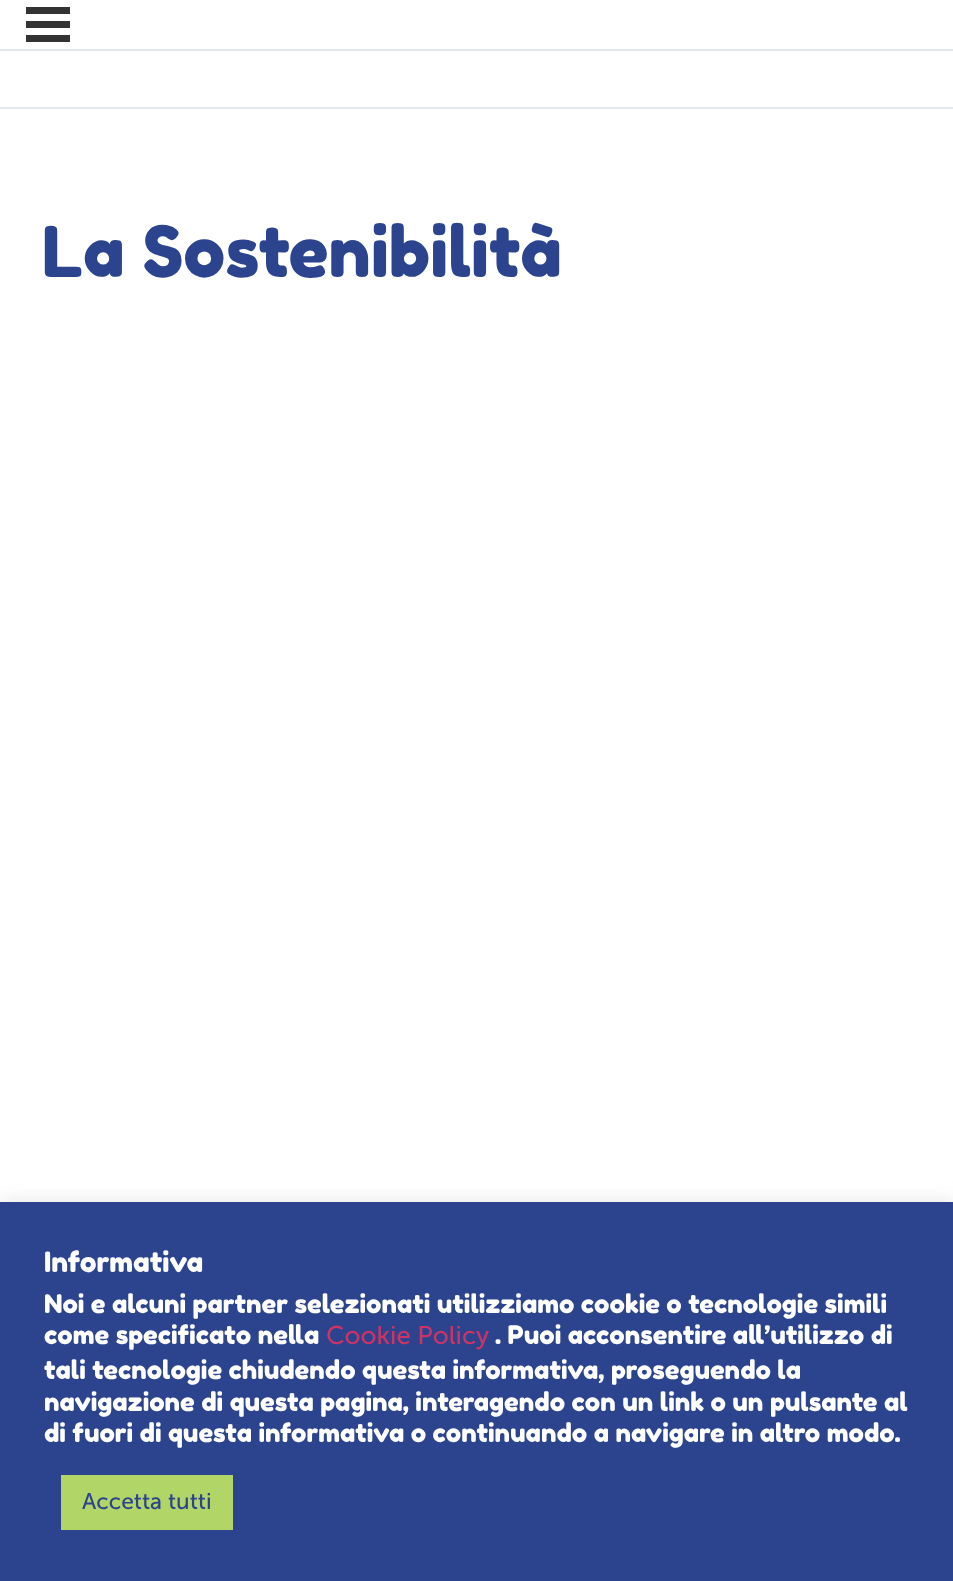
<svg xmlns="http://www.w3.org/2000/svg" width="953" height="1581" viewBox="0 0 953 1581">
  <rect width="100%" height="100%" fill="#fff"/>
  <path d="M0 107h953v2H0z" fill="#e2e7ed"/>
  <path d="M26 7h44v7H26z" fill="#333"/>
  <path d="M26 21h44v7H26z" fill="#333"/>
  <path d="M26 35h44v7H26z" fill="#333"/>
  <path d="M0 49h953v2H0z" fill="#e2e7ed"/>
  <path d="M0 1201h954v379H0z" fill="#acabab4d" filter="blur(9px)"/>
  <path d="M0 1202h953v379H0z" fill="#2c438e"/>
  <path d="M61 1475h172v55H61z" fill="#b1d567"/>
  <text x="42" y="277" font-family="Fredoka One" font-size="70" fill="#2c438e">La Sostenibilità</text>
  <text x="44" y="1272" font-family="Fredoka One" font-size="28" fill="#fff">Informativa</text>
  <g font-family="Fredoka One" font-size="25.65" fill="#fff">
    <text x="44" y="1313">Noi e alcuni partner selezionati utilizziamo cookie o tecnologie simili</text>
    <text x="44" y="1344">come specificato nella</text>
  </g>
  <text x="326" y="1344" font-family="Museo Sans" font-size="25.65" fill="#c36">Cookie Policy</text>
  <g font-family="Fredoka One" font-size="25.65" fill="#fff">
    <text x="495" y="1344">. Puoi acconsentire all’utilizzo di</text>
    <text x="44" y="1379">tali tecnologie chiudendo questa informativa, proseguendo la</text>
    <text x="44" y="1411">navigazione di questa pagina, interagendo con un link o un pulsante al</text>
    <text x="44" y="1442">di fuori di questa informativa o continuando a navigare in altro modo.</text>
  </g>
  <text x="82" y="1509" font-family="Museo Sans" font-size="22.75" fill="#2c438e">Accetta tutti</text>
</svg>
